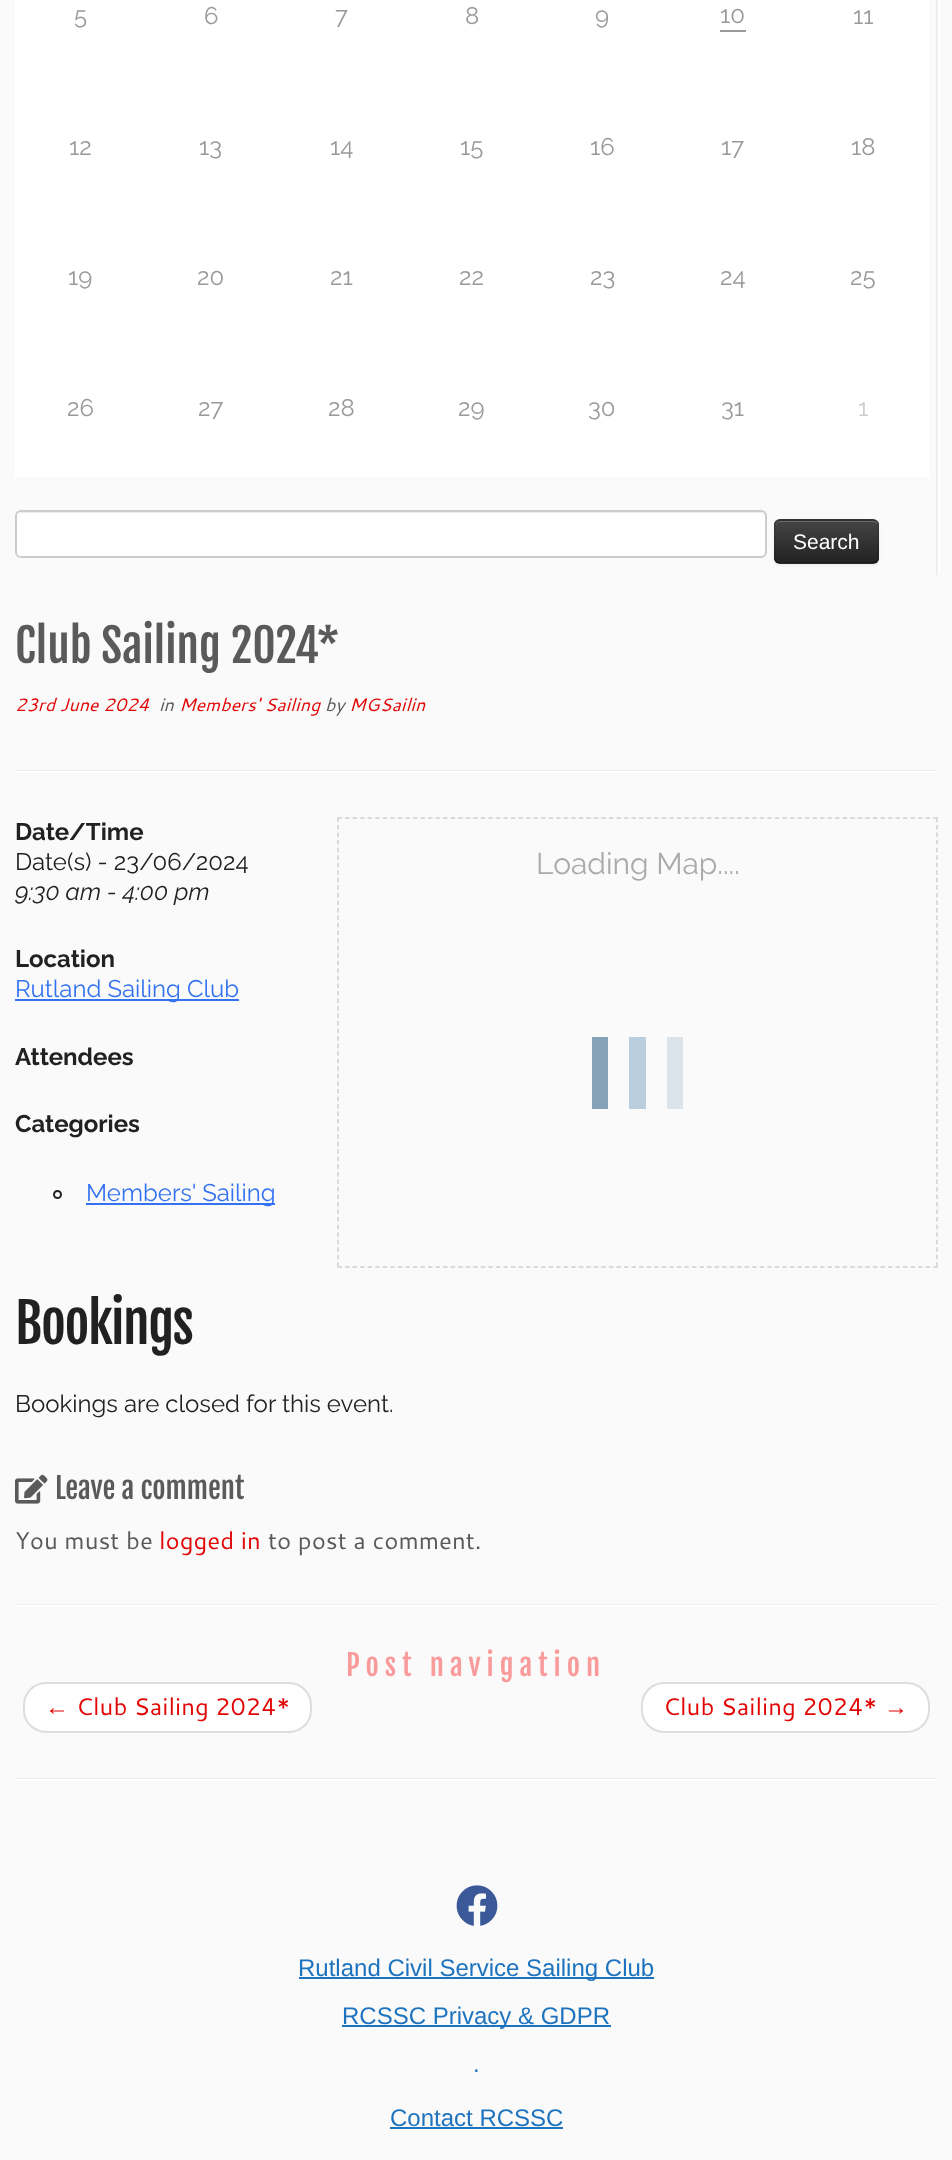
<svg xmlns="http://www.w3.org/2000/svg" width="952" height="2160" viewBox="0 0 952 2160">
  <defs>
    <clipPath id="clip1"><rect x="774" y="519" width="105" height="45" rx="6"/></clipPath>
    <linearGradient id="g1" gradientUnits="userSpaceOnUse" x1="827" y1="521" x2="827" y2="563"><stop offset="0" stop-color="#444"/><stop offset="1" stop-color="#222"/></linearGradient>
  </defs>
  <rect width="100%" height="100%" fill="#fafafa"/>
  <path d="M936 0h2v575H936z" fill="#eee"/>
  <path d="M15 0h914v477H15z" fill="#fff"/>
  <path d="M720 30h26v2H720z" fill="#999"/>
  <path d="M938 0h2v575H938z" fill="#fff"/>
  <rect x="15" y="510" width="752" height="48" rx="6" fill="#fff"/>
  <path d="M21 513H760C763 513 765 515 765 518V517C765 514 763 512 760 512H22C20 512 19 513 18 514Z" fill="#ececec"/>
  <rect x="16" y="511" width="750" height="46" rx="5" fill="none" stroke="#ccc" stroke-width="2"/>
  <rect x="774" y="521" width="105" height="45" rx="6" fill="#0000000d" filter="blur(1.5px)"/>
  <rect x="774" y="519" width="105" height="45" rx="6" fill="#363636"/>
  <g clip-path="url(#clip1)">
    <path d="M774 521h105v42H774z" fill="url(#g1)"/>
  </g>
  <path d="M780 522H873C875 522 878 524 878 526C878 523 876 521 873 521H781C778 521 776 523 776 526C776 524 778 522 780 522Z" fill="#696969"/>
  <path d="M876.5 561.5L873.5 563H779.5L776.5 561.5" fill="none" stroke="#00000040" stroke-width="1.5"/>
  <path d="M776.5 561.5C774 559.5 775 555.5 775 552.5V541.5C775 517.5 771 520 795.5 520H857.5C882 520 878 517.5 878 541.5V552.5C878 555.5 879 559.5 876.5 561.5" fill="none" stroke="#0000001a" stroke-width="1.5"/>
  <path d="M15 770h923v1H15z" fill="#eee"/>
  <path d="M15 771h923v2H15z" fill="#fff"/>
  <path d="M337.5 818H937.5" fill="none" stroke="#d0d0d0" stroke-width="1.5" stroke-dasharray="4.5 3.04"/>
  <path d="M937 817.5V1267.5" fill="none" stroke="#d0d0d0" stroke-width="1.5" stroke-dasharray="4.5 3.04"/>
  <path d="M337.5 1267H937.5" fill="none" stroke="#d0d0d0" stroke-width="1.5" stroke-dasharray="4.5 3.04"/>
  <path d="M338 817.5V1267.5" fill="none" stroke="#d0d0d0" stroke-width="1.5" stroke-dasharray="4.5 3.04"/>
  <path d="M592 1037h16v72H592z" fill="#85a2b6"/>
  <path d="M629 1037h17v72H629z" fill="#bbcedd"/>
  <path d="M667 1037h16v72H667z" fill="#dce4eb"/>
  <path d="M15 999h224v2H15z" fill="#3372f0"/>
  <circle cx="57.5" cy="1194.5" r="3.5" fill="none" stroke="#212121" stroke-width="2"/>
  <path d="M86 1203h189v2H86z" fill="#3372f0"/>
  <image x="15" y="1474" width="33" height="30" href="img/1.png"/>
  <path d="M15 1604h923v1H15z" fill="#eee"/>
  <path d="M15 1605h923v2H15z" fill="#fff"/>
  <rect x="24" y="1683" width="287" height="49" rx="22" fill="#fff" stroke="#ddd" stroke-width="2"/>
  <rect x="642" y="1683" width="287" height="49" rx="22" fill="#fff" stroke="#ddd" stroke-width="2"/>
  <path d="M15 1778h923v1H15z" fill="#eee"/>
  <path d="M15 1779h923v2H15z" fill="#fff"/>
  <image x="456" y="1885" width="42" height="41" href="img/2.png"/>
  <path d="M299 1977h355v2H299z" fill="#1e73be"/>
  <path d="M342 2025h269v2H342z" fill="#1e73be"/>
  <path d="M390 2127h173v2H390z" fill="#1e73be"/>
  <g font-family="Raleway" font-size="24" fill="#999">
    <text x="74" y="24">5</text>
    <text x="204" y="24">6</text>
    <text x="335" y="24">7</text>
    <text x="465" y="24">8</text>
    <text x="595" y="24">9</text>
    <text x="720" y="23">10</text>
    <text x="853" y="24">11</text>
    <text x="69" y="155">12</text>
    <text x="199" y="155">13</text>
    <text x="330" y="155">14</text>
    <text x="460" y="155">15</text>
    <text x="590" y="155">16</text>
    <text x="721" y="155">17</text>
    <text x="851" y="155">18</text>
    <text x="68" y="285">19</text>
    <text x="197" y="285">20</text>
    <text x="330" y="285">21</text>
    <text x="459" y="285">22</text>
    <text x="590" y="285">23</text>
    <text x="720" y="285">24</text>
    <text x="850" y="285">25</text>
    <text x="67" y="416">26</text>
    <text x="198" y="416">27</text>
    <text x="328" y="416">28</text>
    <text x="458" y="416">29</text>
    <text x="588" y="416">30</text>
    <text x="721" y="416">31</text>
  </g>
  <text x="858" y="416" font-family="Raleway" font-size="24" fill="#ccc">1</text>
  <text x="793" y="549" font-family="Liberation Sans" font-size="21" fill="#fff">Search</text>
  <text x="15" y="663" font-family="Fjalla One" font-size="45.5" fill="#5a5a5a">Club Sailing 2024*</text>
  <text x="15" y="711" font-family="Cantarell" font-size="18" font-style="italic" fill="#e10707">23rd June 2024</text>
  <text x="159" y="711" font-family="Cantarell" font-size="18" font-style="italic" fill="#5a5a5a">in</text>
  <text x="179" y="711" font-family="Cantarell" font-size="18" font-style="italic" fill="#e10707">Members' Sailing</text>
  <text x="325" y="711" font-family="Cantarell" font-size="18" font-style="italic" fill="#5a5a5a">by</text>
  <text x="349" y="711" font-family="Cantarell" font-size="18" font-style="italic" fill="#e10707">MGSailin</text>
  <text x="15" y="840" font-family="Raleway" font-size="24" font-weight="bold" fill="#212121">Date/Time</text>
  <text x="15" y="870" font-family="Raleway" font-size="24" fill="#212121">Date(s) - 23/06/2024</text>
  <text x="15" y="900" font-family="Raleway" font-size="24" font-style="italic" fill="#212121">9:30 am - 4:00 pm</text>
  <text x="536" y="874" font-family="Raleway" font-size="30" fill="#aaa">Loading Map....</text>
  <text x="15" y="967" font-family="Raleway" font-size="24" font-weight="bold" fill="#212121">Location</text>
  <text x="15" y="997" font-family="Raleway" font-size="24" fill="#3372f0">Rutland Sailing Club</text>
  <g font-family="Raleway" font-size="24" font-weight="bold" fill="#212121">
    <text x="15" y="1065">Attendees</text>
    <text x="15" y="1132">Categories</text>
  </g>
  <text x="86" y="1201" font-family="Raleway" font-size="24" fill="#3372f0">Members' Sailing</text>
  <text x="15" y="1344" font-family="Fjalla One" font-size="54" letter-spacing="-1.5" fill="#212121">Bookings</text>
  <text x="15" y="1412" font-family="Raleway" font-size="24" fill="#212121">Bookings are closed for this event.</text>
  <text x="55" y="1499" font-family="Fjalla One" font-size="28.75" fill="#5a5a5a">Leave a comment</text>
  <text x="15" y="1549" font-family="Cantarell" font-size="24" fill="#5a5a5a">You must be</text>
  <text x="159" y="1549" font-family="Cantarell" font-size="24" fill="#e10707">logged in</text>
  <text x="268" y="1549" font-family="Cantarell" font-size="24" fill="#5a5a5a">to post a comment.</text>
  <text x="346" y="1676" font-family="Fjalla One" font-size="28.75" letter-spacing="6" fill="#fa9b9b">Post navigation</text>
  <text x="45" y="1715" font-family="Liberation Serif" font-size="24" fill="#e10707">←</text>
  <g font-family="Cantarell" font-size="24" fill="#e10707">
    <text x="76" y="1715">Club Sailing 2024*</text>
    <text x="663" y="1715">Club Sailing 2024*</text>
  </g>
  <text x="884" y="1715" font-family="Liberation Serif" font-size="24" fill="#e10707">→</text>
  <g font-family="Liberation Sans" font-size="24" fill="#1e73be">
    <text x="298" y="1976">Rutland Civil Service Sailing Club</text>
    <text x="342" y="2024">RCSSC Privacy &amp; GDPR</text>
    <text x="473" y="2072">.</text>
    <text x="390" y="2126">Contact RCSSC</text>
  </g>
</svg>
